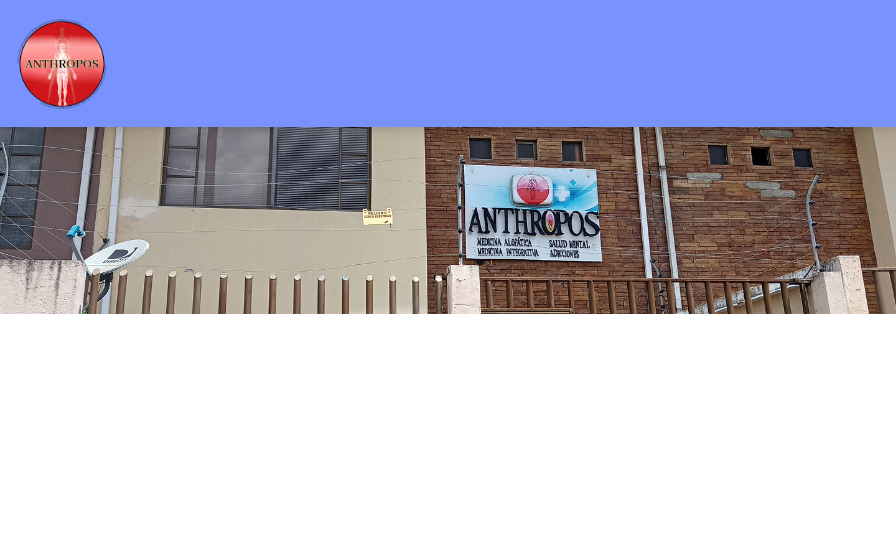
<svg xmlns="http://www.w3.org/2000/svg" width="896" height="536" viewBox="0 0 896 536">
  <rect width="100%" height="100%" fill="#fff"/>
  <image x="0" y="127" width="896" height="187" href="img/1.png"/>
  <path d="M0 2h896v127H0z" fill="#0000000d" filter="blur(2px)"/>
  <path d="M0 4h896v127H0z" fill="#00000012" filter="blur(6px)"/>
  <path d="M0 0h896v127H0z" fill="#7893ff"/>
  <image x="17" y="19" width="90" height="90" href="img/2.png"/>
</svg>
